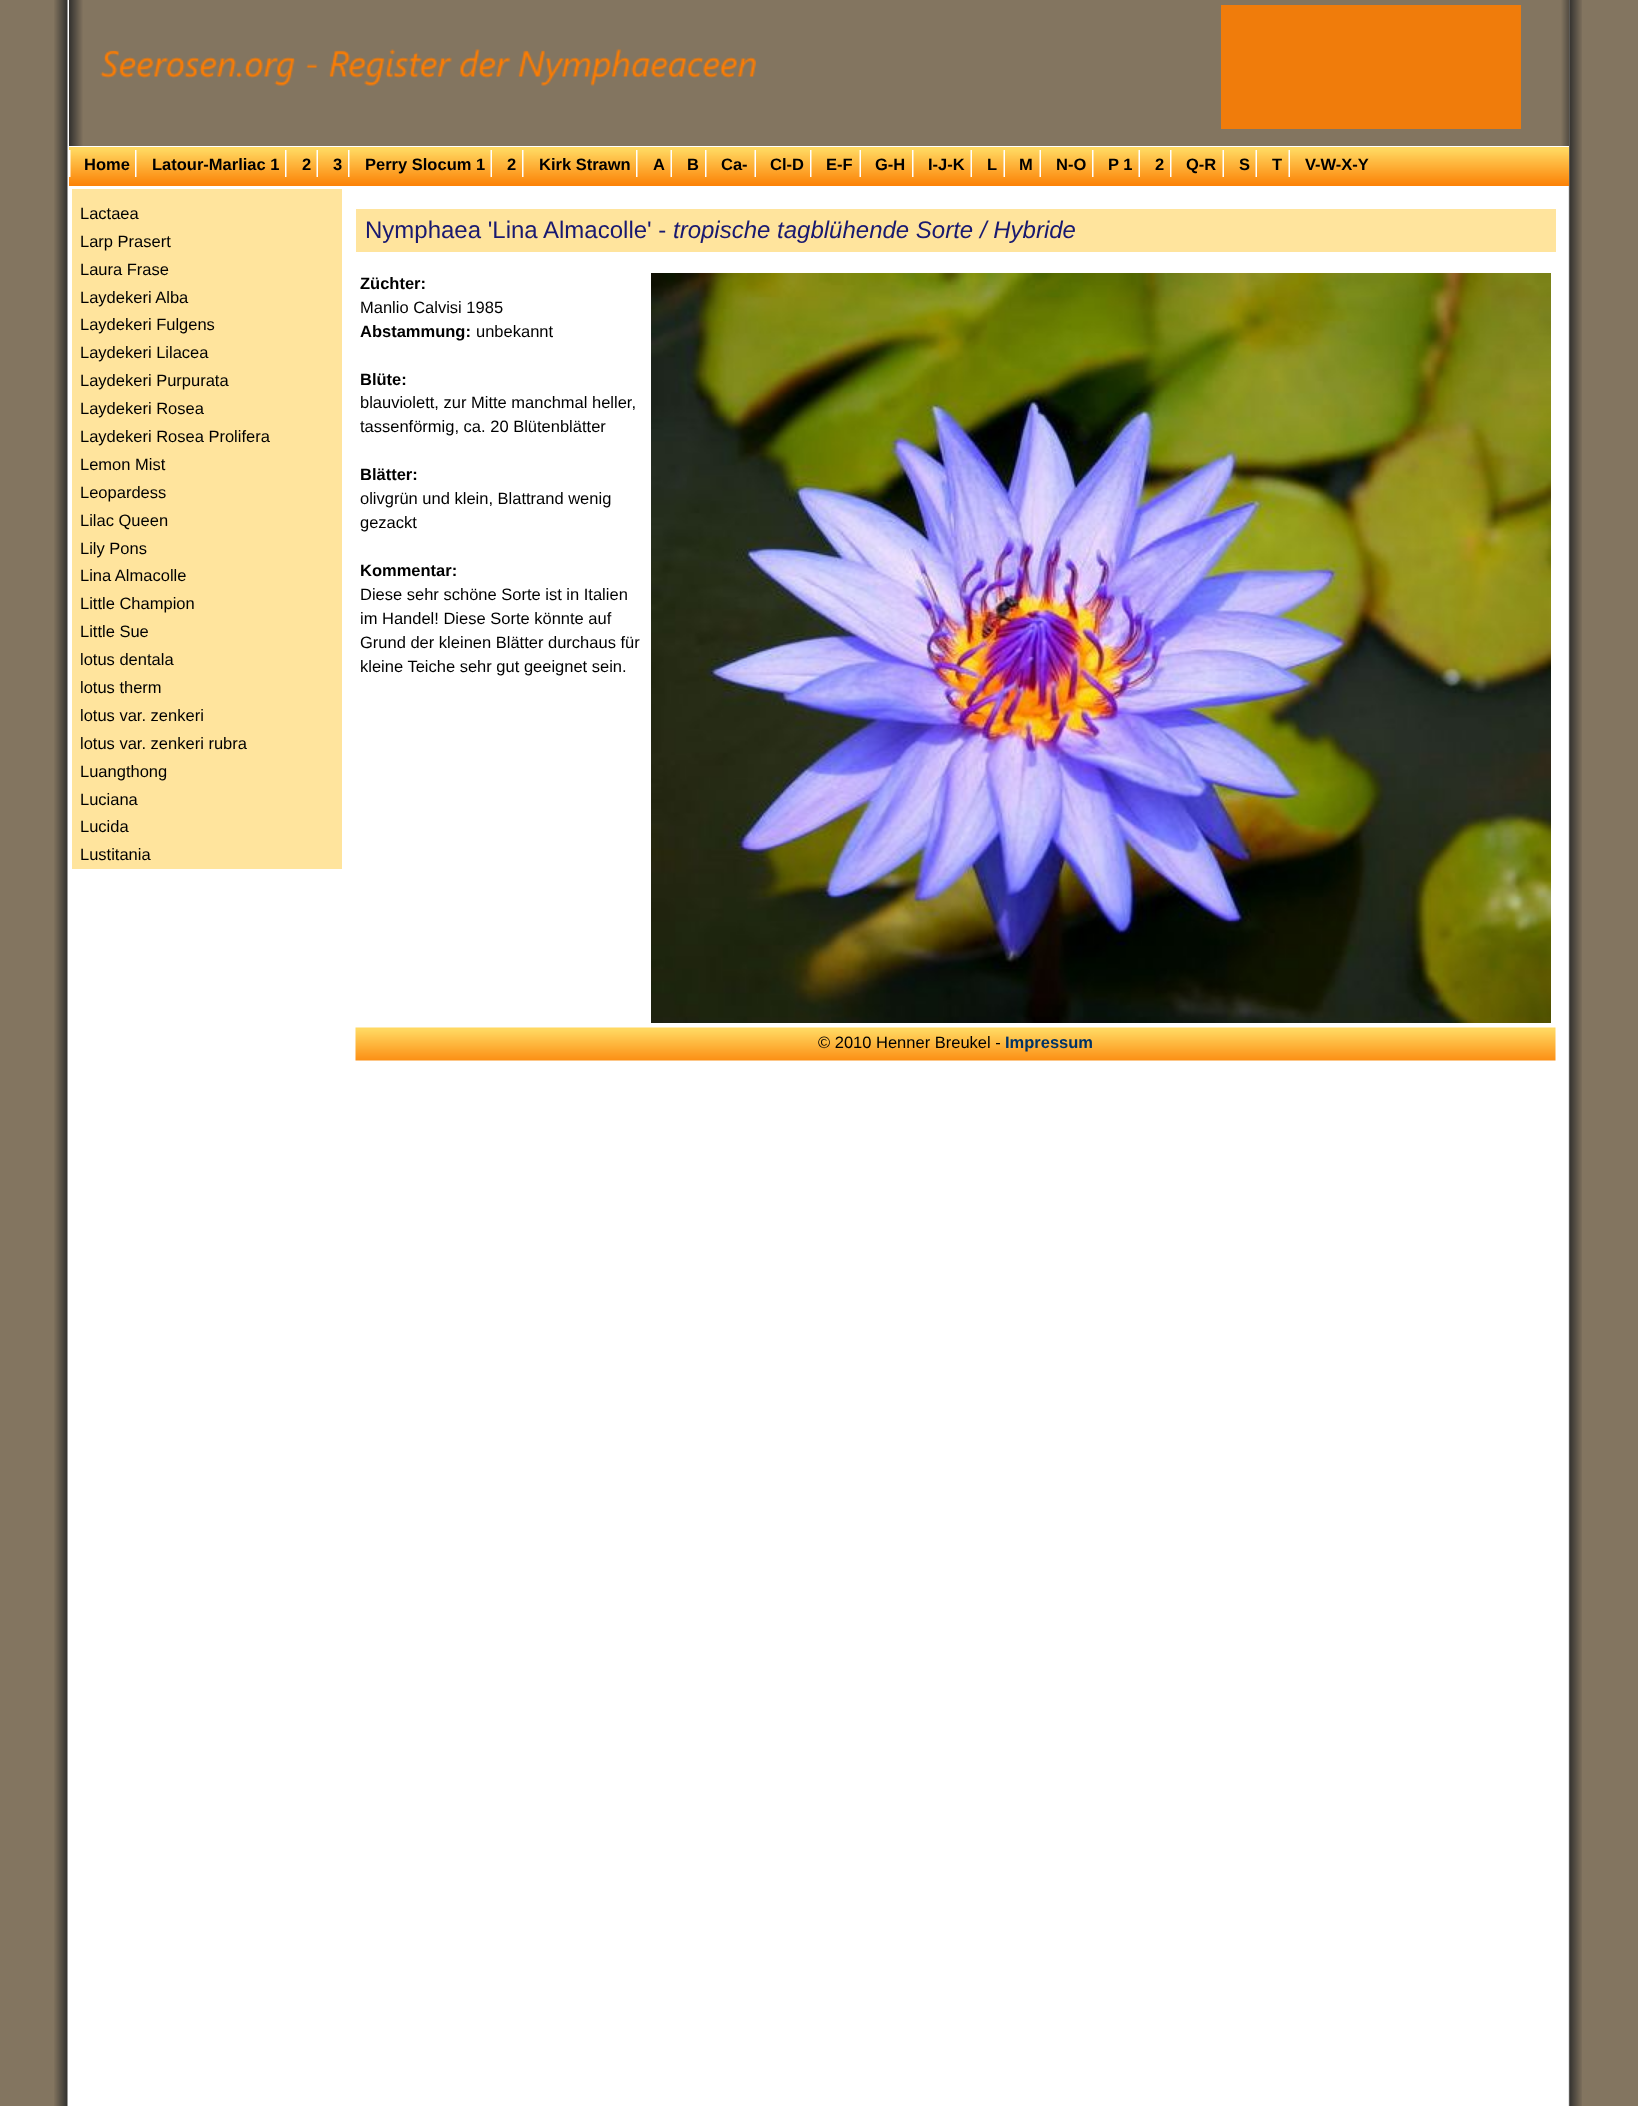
<svg xmlns="http://www.w3.org/2000/svg" width="1638" height="2106" viewBox="0 0 1638 2106">
  <rect width="100%" height="100%" fill="#837560"/>
  <image x="54" y="0" width="1528" height="2106" href="img/1.png"/>
  <image x="69" y="0" width="1500" height="146" href="img/2.png"/>
  <path d="M1568 146h1v1H1568z" fill="#fff"/>
  <image x="100" y="49" width="656" height="37" href="img/3.png"/>
  <path d="M1221 5h300v124H1221z" fill="#f07c0b"/>
  <image x="69" y="147" width="1500" height="39" href="img/4.png"/>
  <image x="69" y="150" width="2" height="27" href="img/5.png"/>
  <image x="135" y="150" width="2" height="27" href="img/5.png"/>
  <image x="285" y="150" width="2" height="27" href="img/5.png"/>
  <image x="316" y="150" width="2" height="27" href="img/6.png"/>
  <image x="348" y="150" width="2" height="27" href="img/5.png"/>
  <image x="490" y="150" width="2" height="27" href="img/6.png"/>
  <image x="522" y="150" width="2" height="27" href="img/5.png"/>
  <image x="636" y="150" width="2" height="27" href="img/5.png"/>
  <image x="670" y="150" width="2" height="27" href="img/6.png"/>
  <image x="705" y="150" width="2" height="27" href="img/5.png"/>
  <image x="754" y="150" width="2" height="27" href="img/6.png"/>
  <image x="810" y="150" width="2" height="27" href="img/5.png"/>
  <image x="859" y="150" width="2" height="27" href="img/6.png"/>
  <image x="912" y="150" width="2" height="27" href="img/5.png"/>
  <image x="970" y="150" width="2" height="27" href="img/6.png"/>
  <image x="1003" y="150" width="2" height="27" href="img/6.png"/>
  <image x="1039" y="150" width="2" height="27" href="img/6.png"/>
  <image x="1092" y="150" width="2" height="27" href="img/5.png"/>
  <image x="1138" y="150" width="2" height="27" href="img/6.png"/>
  <image x="1170" y="150" width="2" height="27" href="img/5.png"/>
  <image x="1222" y="150" width="2" height="27" href="img/6.png"/>
  <image x="1255" y="150" width="2" height="27" href="img/6.png"/>
  <image x="1288" y="150" width="2" height="27" href="img/6.png"/>
  <path d="M72 189h270v680H72z" fill="#ffe49d"/>
  <path d="M356 209h1200v43H356z" fill="#ffe49d"/>
  <image x="651" y="273" width="900" height="750" href="img/7.png"/>
  <image x="355" y="1027" width="1201" height="34" href="img/8.png"/>
  <g font-family="Liberation Sans" font-size="16.5" font-weight="bold" fill="#000">
    <text x="84" y="170">Home</text>
    <text x="152" y="170">Latour-Marliac 1</text>
    <text x="302" y="170">2</text>
    <text x="333" y="170">3</text>
    <text x="365" y="170">Perry Slocum 1</text>
    <text x="507" y="170">2</text>
    <text x="539" y="170">Kirk Strawn</text>
    <text x="653" y="170">A</text>
    <text x="687" y="170">B</text>
    <text x="721" y="170">Ca-</text>
    <text x="770" y="170">Cl-D</text>
    <text x="826" y="170">E-F</text>
    <text x="875" y="170">G-H</text>
    <text x="928" y="170">I-J-K</text>
    <text x="987" y="170">L</text>
    <text x="1019" y="170">M</text>
    <text x="1056" y="170">N-O</text>
    <text x="1108" y="170">P 1</text>
    <text x="1155" y="170">2</text>
    <text x="1186" y="170">Q-R</text>
    <text x="1239" y="170">S</text>
    <text x="1272" y="170">T</text>
    <text x="1305" y="170">V-W-X-Y</text>
  </g>
  <g font-family="Liberation Sans" font-size="16.5" fill="#000">
    <text x="80" y="219">Lactaea</text>
    <text x="80" y="247">Larp Prasert</text>
    <text x="80" y="275">Laura Frase</text>
    <text x="80" y="303">Laydekeri Alba</text>
    <text x="80" y="330">Laydekeri Fulgens</text>
    <text x="80" y="358">Laydekeri Lilacea</text>
    <text x="80" y="386">Laydekeri Purpurata</text>
    <text x="80" y="414">Laydekeri Rosea</text>
    <text x="80" y="442">Laydekeri Rosea Prolifera</text>
    <text x="80" y="470">Lemon Mist</text>
    <text x="80" y="498">Leopardess</text>
    <text x="80" y="526">Lilac Queen</text>
    <text x="80" y="554">Lily Pons</text>
    <text x="80" y="581">Lina Almacolle</text>
    <text x="80" y="609">Little Champion</text>
    <text x="80" y="637">Little Sue</text>
    <text x="80" y="665">lotus dentala</text>
    <text x="80" y="693">lotus therm</text>
    <text x="80" y="721">lotus var. zenkeri</text>
    <text x="80" y="749">lotus var. zenkeri rubra</text>
    <text x="80" y="777">Luangthong</text>
    <text x="80" y="805">Luciana</text>
    <text x="80" y="832">Lucida</text>
    <text x="80" y="860">Lustitania</text>
  </g>
  <text x="365" y="238" font-family="Liberation Sans" font-size="24" fill="#191970">Nymphaea 'Lina Almacolle' -</text>
  <text x="673" y="238" font-family="Liberation Sans" font-size="24" font-style="italic" fill="#191970">tropische tagblühende Sorte / Hybride</text>
  <text x="360" y="289" font-family="Liberation Sans" font-size="16.5" font-weight="bold" fill="#000">Züchter:</text>
  <text x="360" y="313" font-family="Liberation Sans" font-size="16.5" fill="#000">Manlio Calvisi 1985</text>
  <text x="360" y="337" font-family="Liberation Sans" font-size="16.5" font-weight="bold" fill="#000">Abstammung:</text>
  <text x="476" y="337" font-family="Liberation Sans" font-size="16.5" fill="#000">unbekannt</text>
  <text x="360" y="385" font-family="Liberation Sans" font-size="16.5" font-weight="bold" fill="#000">Blüte:</text>
  <g font-family="Liberation Sans" font-size="16.5" fill="#000">
    <text x="360" y="408">blauviolett, zur Mitte manchmal heller,</text>
    <text x="360" y="432">tassenförmig, ca. 20 Blütenblätter</text>
  </g>
  <text x="360" y="480" font-family="Liberation Sans" font-size="16.5" font-weight="bold" fill="#000">Blätter:</text>
  <g font-family="Liberation Sans" font-size="16.5" fill="#000">
    <text x="360" y="504">olivgrün und klein, Blattrand wenig</text>
    <text x="360" y="528">gezackt</text>
  </g>
  <text x="360" y="576" font-family="Liberation Sans" font-size="16.5" font-weight="bold" fill="#000">Kommentar:</text>
  <g font-family="Liberation Sans" font-size="16.5" fill="#000">
    <text x="360" y="600">Diese sehr schöne Sorte ist in Italien</text>
    <text x="360" y="624">im Handel! Diese Sorte könnte auf</text>
    <text x="360" y="648">Grund der kleinen Blätter durchaus für</text>
    <text x="360" y="672">kleine Teiche sehr gut geeignet sein.</text>
    <text x="818" y="1048">© 2010 Henner Breukel -</text>
  </g>
  <text x="1005" y="1048" font-family="Liberation Sans" font-size="16.5" font-weight="bold" fill="#036">Impressum</text>
</svg>
